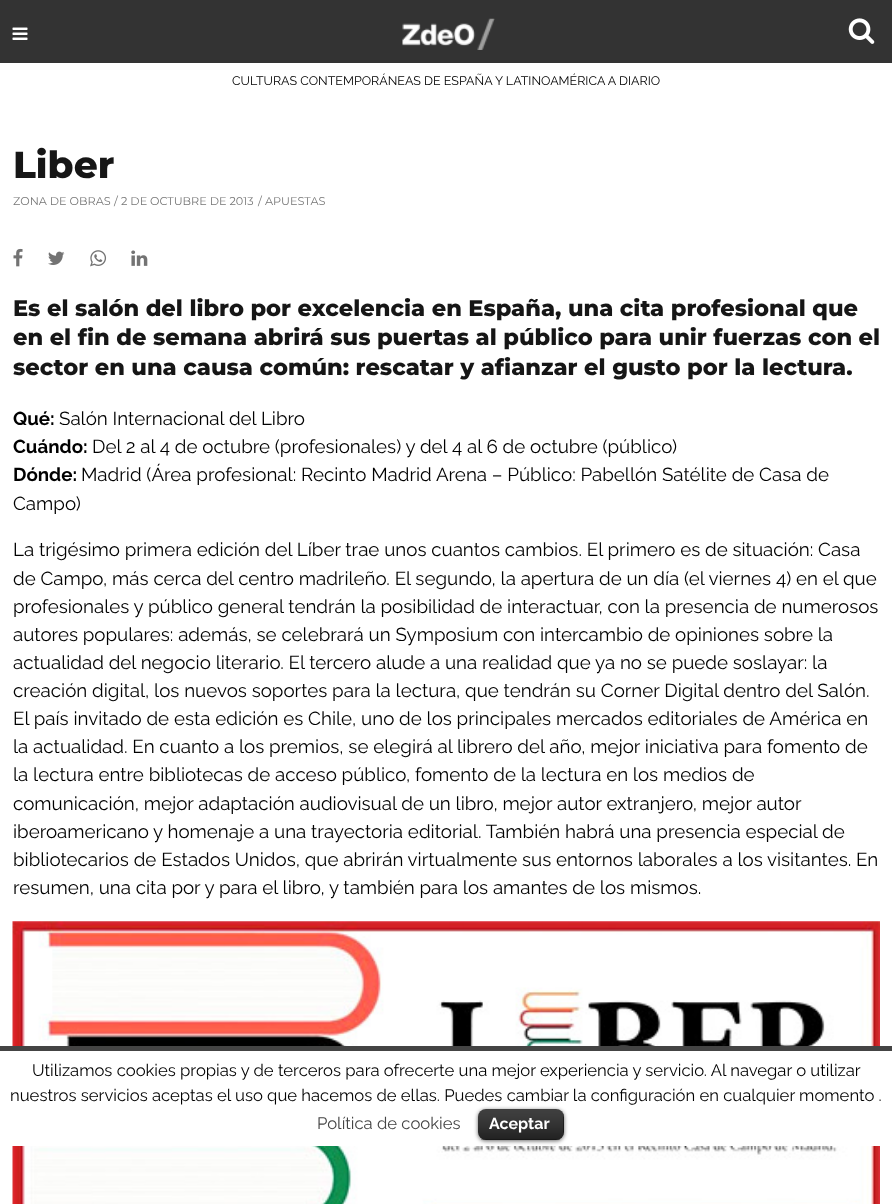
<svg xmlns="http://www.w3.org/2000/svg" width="892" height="1204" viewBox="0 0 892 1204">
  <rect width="100%" height="100%" fill="#fff"/>
  <path d="M0 0h892v63H0z" fill="#333"/>
  <image x="12" y="27" width="16" height="13" href="img/1.png"/>
  <image x="402" y="18" width="93" height="32" href="img/2.png"/>
  <image x="848" y="18" width="27" height="26" href="img/3.png"/>
  <image x="13" y="248" width="10" height="19" href="img/4.png"/>
  <image x="48" y="251" width="17" height="14" href="img/5.png"/>
  <image x="90" y="250" width="17" height="17" href="img/6.png"/>
  <image x="131" y="250" width="17" height="16" href="img/7.png"/>
  <image x="12" y="921" width="868" height="283" href="img/8.png"/>
  <path d="M12 1051h868v95H12z" fill="#fff"/>
  <path d="M0 1046h892v5H0z" fill="#444"/>
  <rect x="478" y="1110" width="86" height="31" rx="8" fill="#00000099" filter="blur(2px)"/>
  <rect x="478" y="1109" width="86" height="31" rx="8" fill="#000"/>
  <image x="478" y="1109" width="86" height="31" href="img/9.png"/>
  <path d="M481 1139h79v1H481z" fill="#00000040"/>
  <text x="232" y="85" font-family="Raleway" font-size="12.5" fill="#000">CULTURAS CONTEMPORÁNEAS DE ESPAÑA Y LATINOAMÉRICA A DIARIO</text>
  <text x="13" y="178" font-family="Montserrat" font-size="37.5" font-weight="800" fill="#161616">Liber</text>
  <g font-family="Montserrat" font-size="11.25" fill="#777">
    <text x="13" y="205">ZONA DE OBRAS</text>
    <text x="114" y="205">/</text>
    <text x="121" y="205">2 DE OCTUBRE DE 2013</text>
    <text x="258" y="205">/</text>
    <text x="265" y="205">APUESTAS</text>
  </g>
  <g font-family="Montserrat" font-size="22.5" font-weight="800" fill="#161616">
    <text x="13" y="316">Es el salón del libro por excelencia en España, una cita profesional que</text>
    <text x="13" y="345">en el fin de semana abrirá sus puertas al público para unir fuerzas con el</text>
    <text x="13" y="375">sector en una causa común: rescatar y afianzar el gusto por la lectura.</text>
  </g>
  <text x="13" y="425" font-family="Raleway" font-size="18.75" font-weight="bold" fill="#000">Qué:</text>
  <text x="59" y="425" font-family="Raleway" font-size="18.75" fill="#000">Salón Internacional del Libro</text>
  <text x="13" y="453" font-family="Raleway" font-size="18.75" font-weight="bold" fill="#000">Cuándo:</text>
  <text x="92" y="453" font-family="Raleway" font-size="18.75" fill="#000">Del 2 al 4 de octubre (profesionales) y del 4 al 6 de octubre (público)</text>
  <text x="13" y="481" font-family="Raleway" font-size="18.75" font-weight="bold" fill="#000">Dónde:</text>
  <g font-family="Raleway" font-size="18.75" fill="#000">
    <text x="81" y="481">Madrid (Área profesional: Recinto Madrid Arena – Público: Pabellón Satélite de Casa de</text>
    <text x="13" y="510">Campo)</text>
    <text x="13" y="556">La trigésimo primera edición del Líber trae unos cuantos cambios. El primero es de situación: Casa</text>
    <text x="13" y="585">de Campo, más cerca del centro madrileño. El segundo, la apertura de un día (el viernes 4) en el que</text>
    <text x="13" y="613">profesionales y público general tendrán la posibilidad de interactuar, con la presencia de numerosos</text>
    <text x="13" y="641">autores populares: además, se celebrará un Symposium con intercambio de opiniones sobre la</text>
    <text x="13" y="669">actualidad del negocio literario. El tercero alude a una realidad que ya no se puede soslayar: la</text>
    <text x="13" y="697">creación digital, los nuevos soportes para la lectura, que tendrán su Corner Digital dentro del Salón.</text>
    <text x="13" y="725">El país invitado de esta edición es Chile, uno de los principales mercados editoriales de América en</text>
    <text x="13" y="753">la actualidad. En cuanto a los premios, se elegirá al librero del año, mejor iniciativa para fomento de</text>
    <text x="13" y="781">la lectura entre bibliotecas de acceso público, fomento de la lectura en los medios de</text>
    <text x="13" y="810">comunicación, mejor adaptación audiovisual de un libro, mejor autor extranjero, mejor autor</text>
    <text x="13" y="838">iberoamericano y homenaje a una trayectoria editorial. También habrá una presencia especial de</text>
    <text x="13" y="866">bibliotecarios de Estados Unidos, que abrirán virtualmente sus entornos laborales a los visitantes. En</text>
    <text x="13" y="894">resumen, una cita por y para el libro, y también para los amantes de los mismos.</text>
  </g>
  <g font-family="Raleway" font-size="16.67" fill="#000">
    <text x="32" y="1076">Utilizamos cookies propias y de terceros para ofrecerte una mejor experiencia y servicio. Al navegar o utilizar</text>
    <text x="10" y="1101">nuestros servicios aceptas el uso que hacemos de ellas. Puedes cambiar la configuración en cualquier momento .</text>
  </g>
  <text x="317" y="1129" font-family="Raleway" font-size="16.67" fill="#444">Política de cookies</text>
  <text x="489" y="1129" font-family="Raleway" font-size="16" font-weight="bold" fill="#fff">Aceptar</text>
</svg>
